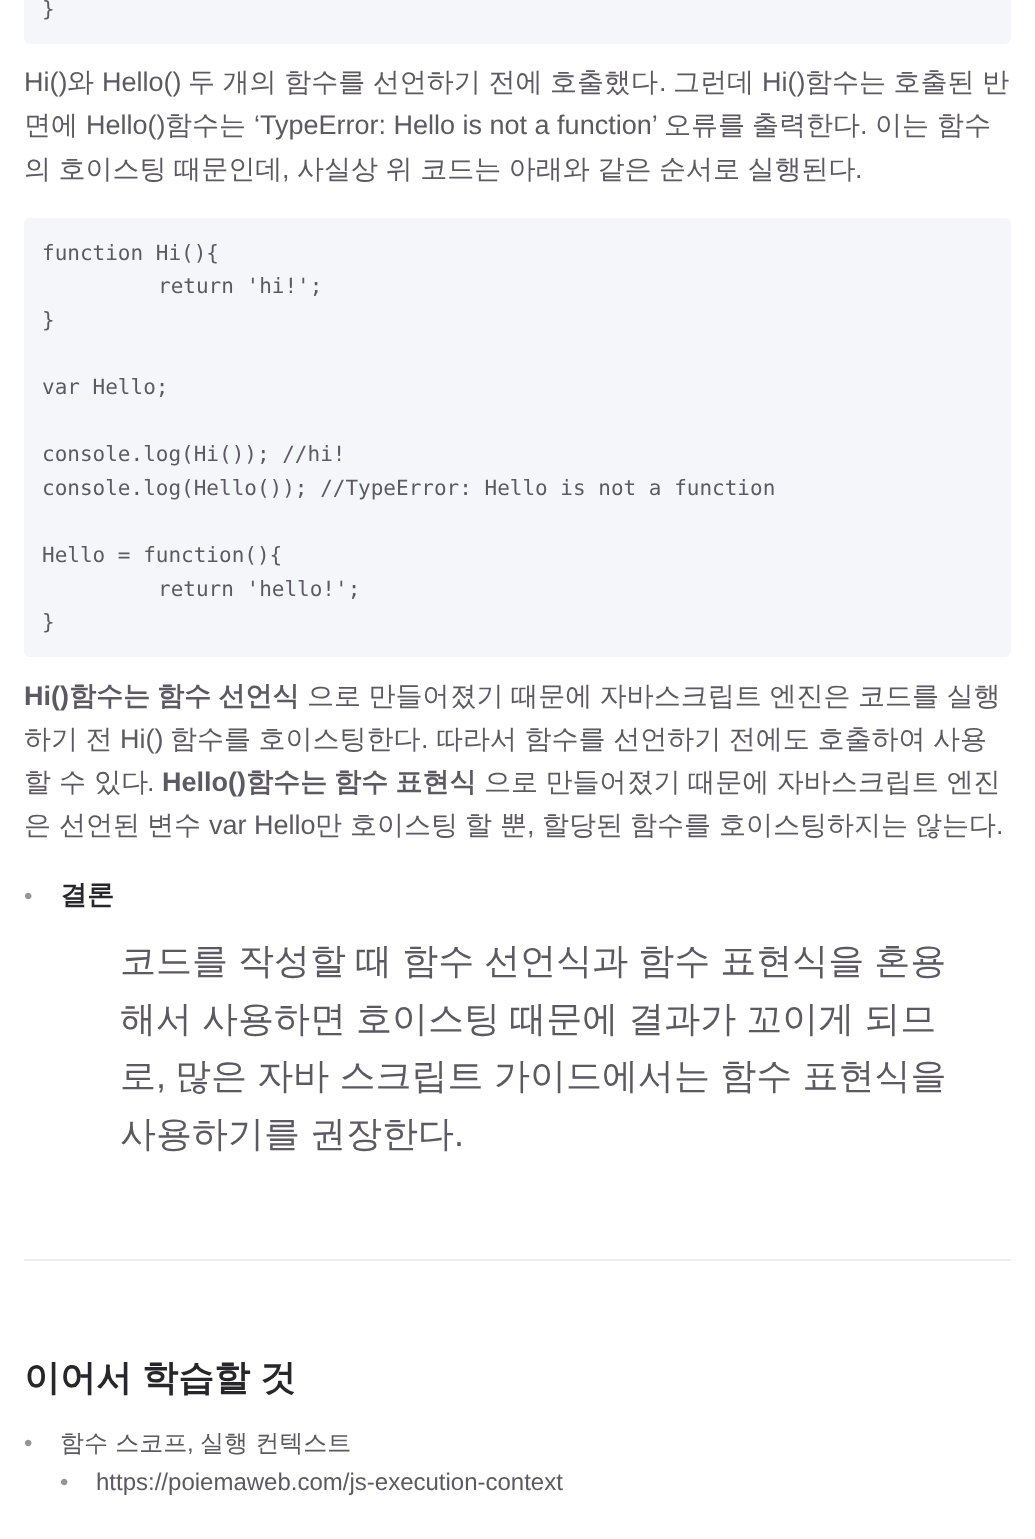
<svg xmlns="http://www.w3.org/2000/svg" width="1035" height="1539" viewBox="0 0 1035 1539">
  <rect width="100%" height="100%" fill="#fff"/>
  <rect x="24" y="-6" width="987" height="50" rx="6" fill="#f5f6fa"/>
  <rect x="24" y="218" width="987" height="439" rx="6" fill="#f5f6fa"/>
  <path d="M24 1259h987v2H24z" fill="#eeebee"/>
  <text x="42" y="16" font-family="DejaVu Sans Mono" font-size="21" fill="#5c5962">}</text>
  <text x="24" y="91" font-family="Liberation Sans" font-size="27" fill="#5c5962">Hi()</text>
  <text x="67" y="91" font-family="WenQuanYi Zen Hei" font-size="27" font-weight="500" fill="#5c5962">와</text>
  <text x="102" y="91" font-family="Liberation Sans" font-size="27" fill="#5c5962">Hello()</text>
  <text x="188" y="91" word-spacing="-0.5" font-family="WenQuanYi Zen Hei" font-size="27" font-weight="500" fill="#5c5962">두 개의 함수를 선언하기 전에 호출했다</text>
  <text x="659" y="91" font-family="Liberation Sans" font-size="27" fill="#5c5962">.</text>
  <text x="673" y="91" font-family="WenQuanYi Zen Hei" font-size="27" font-weight="500" fill="#5c5962">그런데</text>
  <text x="762" y="91" font-family="Liberation Sans" font-size="27" fill="#5c5962">Hi()</text>
  <g font-family="WenQuanYi Zen Hei" font-size="27" font-weight="500" fill="#5c5962">
    <text x="805" y="91" word-spacing="-0.5">함수는 호출된 반</text>
    <text x="24" y="134">면에</text>
  </g>
  <text x="86" y="134" font-family="Liberation Sans" font-size="27" fill="#5c5962">Hello()</text>
  <text x="165" y="134" font-family="WenQuanYi Zen Hei" font-size="27" font-weight="500" fill="#5c5962">함수는</text>
  <text x="254" y="134" font-family="Liberation Sans" font-size="27" fill="#5c5962">‘TypeError: Hello is not a function’</text>
  <g font-family="WenQuanYi Zen Hei" font-size="27" font-weight="500" fill="#5c5962">
    <text x="664" y="134">오류를</text>
    <text x="752" y="134">출력한다</text>
  </g>
  <text x="860" y="134" font-family="Liberation Sans" font-size="27" fill="#5c5962">.</text>
  <g font-family="WenQuanYi Zen Hei" font-size="27" font-weight="500" fill="#5c5962">
    <text x="875" y="134">이는</text>
    <text x="937" y="134">함수</text>
    <text x="24" y="178" word-spacing="-0.5">의 호이스팅 때문인데</text>
  </g>
  <text x="282" y="178" font-family="Liberation Sans" font-size="27" fill="#5c5962">,</text>
  <text x="297" y="178" word-spacing="-0.5" font-family="WenQuanYi Zen Hei" font-size="27" font-weight="500" fill="#5c5962">사실상 위 코드는 아래와 같은 순서로 실행된다</text>
  <text x="855" y="178" font-family="Liberation Sans" font-size="27" fill="#5c5962">.</text>
  <g font-family="DejaVu Sans Mono" font-size="21" fill="#5c5962">
    <text x="42" y="260">function Hi(){</text>
    <text x="158" y="293">return 'hi!';</text>
    <text x="42" y="327">}</text>
    <text x="42" y="394">var Hello;</text>
    <text x="42" y="461">console.log(Hi()); //hi!</text>
    <text x="42" y="495">console.log(Hello()); //TypeError: Hello is not a function</text>
    <text x="42" y="562">Hello = function(){</text>
    <text x="158" y="596">return 'hello!';</text>
    <text x="42" y="629">}</text>
  </g>
  <text x="24" y="705" font-family="Liberation Sans" font-size="27" font-weight="bold" fill="#5c5962">Hi()</text>
  <text x="69" y="705" word-spacing="-1" font-family="WenQuanYi Zen Hei" font-size="27" font-weight="bold" fill="#5c5962">함수는 함수 선언식</text>
  <g font-family="WenQuanYi Zen Hei" font-size="27" font-weight="500" fill="#5c5962">
    <text x="307" y="705" word-spacing="-0.5">으로 만들어졌기 때문에 자바스크립트 엔진은 코드를 실행</text>
    <text x="24" y="748" word-spacing="-0.5">하기 전</text>
  </g>
  <text x="120" y="748" font-family="Liberation Sans" font-size="27" fill="#5c5962">Hi()</text>
  <text x="170" y="748" word-spacing="-0.5" font-family="WenQuanYi Zen Hei" font-size="27" font-weight="500" fill="#5c5962">함수를 호이스팅한다</text>
  <text x="421" y="748" font-family="Liberation Sans" font-size="27" fill="#5c5962">.</text>
  <g font-family="WenQuanYi Zen Hei" font-size="27" font-weight="500" fill="#5c5962">
    <text x="436" y="748" word-spacing="-0.5">따라서 함수를 선언하기 전에도 호출하여 사용</text>
    <text x="24" y="791">할 수 있다</text>
  </g>
  <text x="147" y="791" font-family="Liberation Sans" font-size="27" fill="#5c5962">.</text>
  <text x="162" y="791" font-family="Liberation Sans" font-size="27" font-weight="bold" fill="#5c5962">Hello()</text>
  <text x="246" y="791" word-spacing="-1" font-family="WenQuanYi Zen Hei" font-size="27" font-weight="bold" fill="#5c5962">함수는 함수 표현식</text>
  <g font-family="WenQuanYi Zen Hei" font-size="27" font-weight="500" fill="#5c5962">
    <text x="484" y="791" word-spacing="-0.5">으로 만들어졌기 때문에 자바스크립트 엔진</text>
    <text x="24" y="834">은</text>
    <text x="59" y="834">선언된</text>
    <text x="147" y="834">변수</text>
  </g>
  <text x="209" y="834" font-family="Liberation Sans" font-size="27" fill="#5c5962">var Hello</text>
  <g font-family="WenQuanYi Zen Hei" font-size="27" font-weight="500" fill="#5c5962">
    <text x="315" y="834">만</text>
    <text x="350" y="834">호이스팅</text>
    <text x="465" y="834">할</text>
    <text x="500" y="834">뿐</text>
  </g>
  <text x="527" y="834" font-family="Liberation Sans" font-size="27" fill="#5c5962">,</text>
  <g font-family="WenQuanYi Zen Hei" font-size="27" font-weight="500" fill="#5c5962">
    <text x="542" y="834">할당된</text>
    <text x="630" y="834">함수를</text>
    <text x="719" y="834">호이스팅하지는</text>
    <text x="915" y="834">않는다</text>
  </g>
  <text x="996" y="834" font-family="Liberation Sans" font-size="27" fill="#5c5962">.</text>
  <text x="24" y="904" font-family="Liberation Sans" font-size="24" fill="#959396">•</text>
  <text x="60" y="904" font-family="WenQuanYi Zen Hei" font-size="27" font-weight="bold" fill="#27262b">결론</text>
  <g font-family="WenQuanYi Zen Hei" font-size="36" font-weight="500" fill="#5c5962">
    <text x="120" y="973" word-spacing="-0.75">코드를 작성할 때 함수 선언식과 함수 표현식을 혼용</text>
    <text x="120" y="1031" word-spacing="-0.75">해서 사용하면 호이스팅 때문에 결과가 꼬이게 되므</text>
    <text x="120" y="1088">로</text>
  </g>
  <text x="156" y="1088" font-family="Liberation Sans" font-size="36" fill="#5c5962">,</text>
  <g font-family="WenQuanYi Zen Hei" font-size="36" font-weight="500" fill="#5c5962">
    <text x="175" y="1088" word-spacing="-0.5">많은 자바 스크립트 가이드에서는 함수 표현식을</text>
    <text x="120" y="1146" word-spacing="-0.75">사용하기를 권장한다</text>
  </g>
  <text x="454" y="1146" font-family="Liberation Sans" font-size="36" fill="#5c5962">.</text>
  <text x="24" y="1390" word-spacing="-0.75" font-family="WenQuanYi Zen Hei" font-size="36" font-weight="bold" fill="#27262b">이어서 학습할 것</text>
  <text x="24" y="1451" font-family="Liberation Sans" font-size="24" fill="#959396">•</text>
  <g font-family="WenQuanYi Zen Hei" font-size="24" font-weight="500" fill="#5c5962">
    <text x="60" y="1451">함수 스코프</text>
    <text x="200" y="1451">실행 컨텍스트</text>
  </g>
  <text x="187" y="1451" font-family="Liberation Sans" font-size="24" fill="#5c5962">,</text>
  <text x="60" y="1490" font-family="Liberation Sans" font-size="24" fill="#959396">•</text>
  <text x="96" y="1490" font-family="Liberation Sans" font-size="24" fill="#5c5962">https://poiemaweb.com/js-execution-context</text>
</svg>
